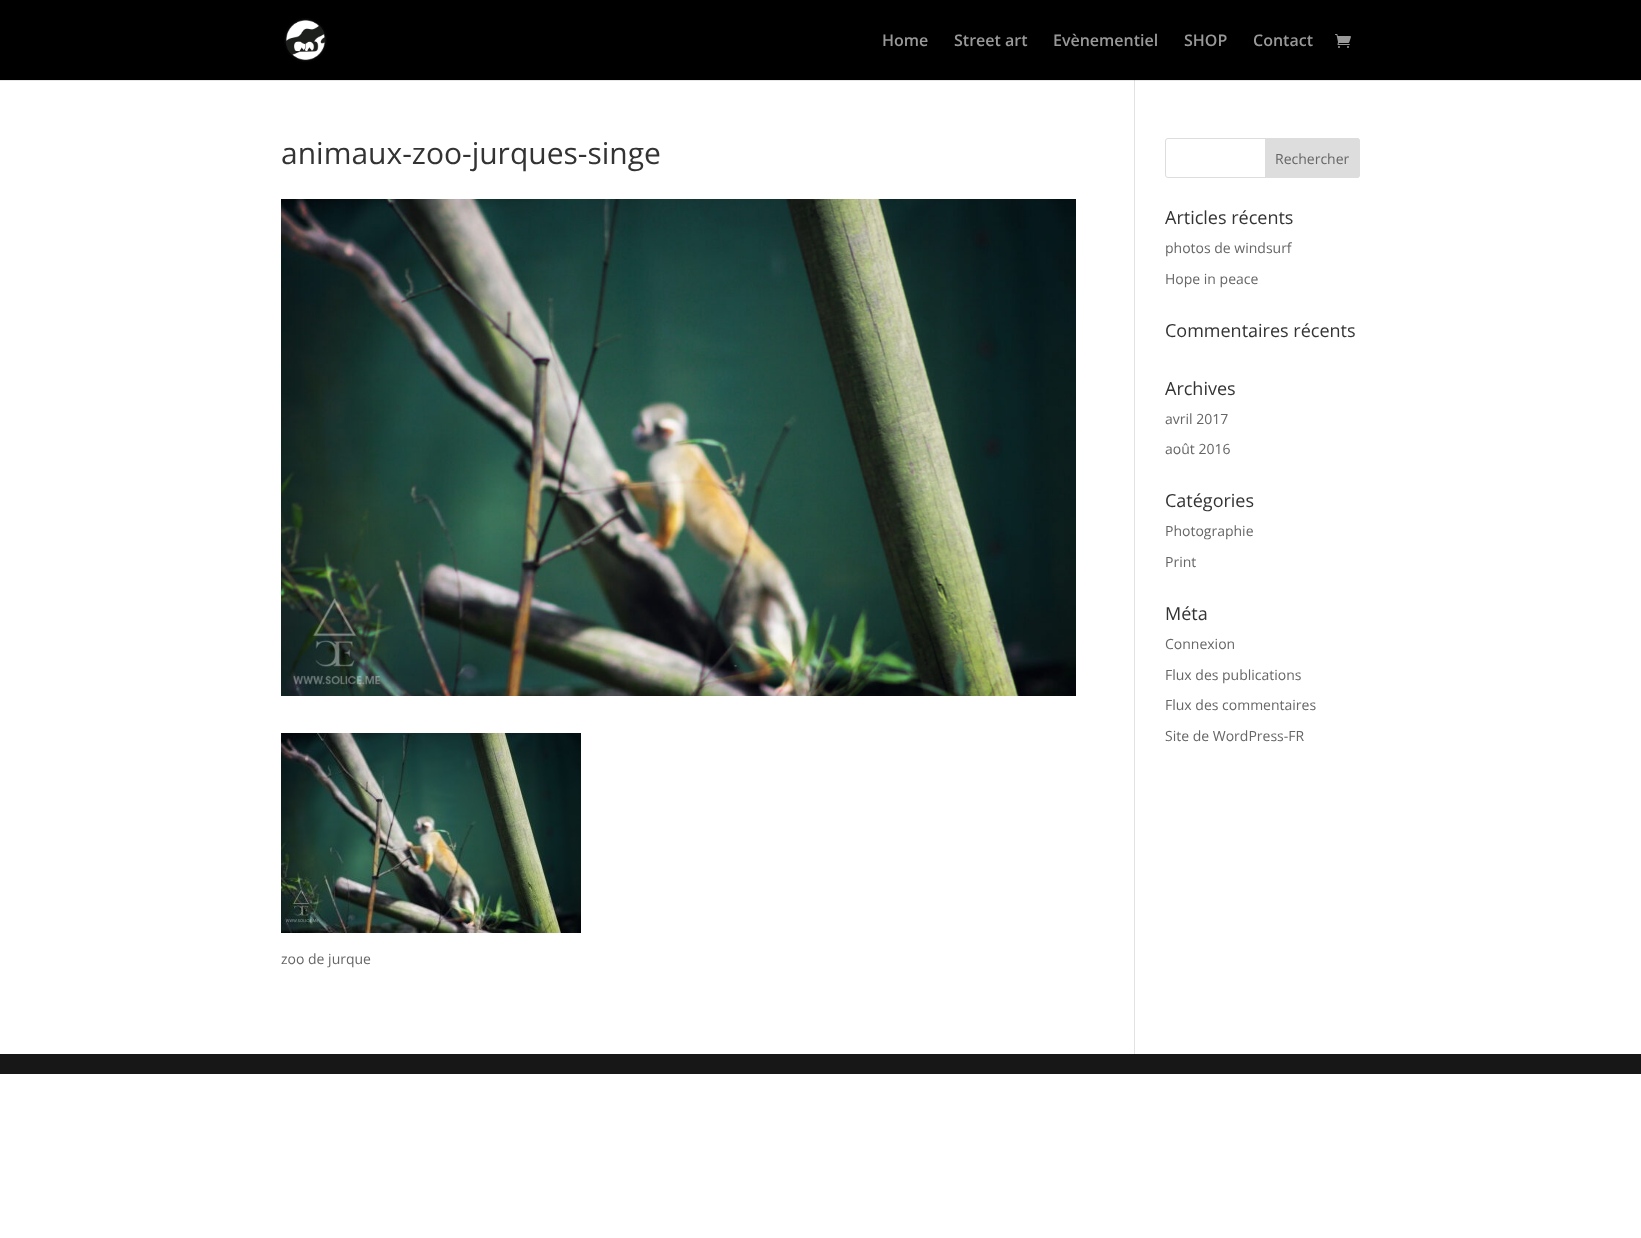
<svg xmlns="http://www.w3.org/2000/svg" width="1641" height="1238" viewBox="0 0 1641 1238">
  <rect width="100%" height="100%" fill="#fff"/>
  <path d="M0 80h1641v1H0z" fill="#e6e6e6"/>
  <path d="M0 0h1641v80H0z" fill="#000"/>
  <image x="284" y="18" width="43" height="44" href="img/1.png"/>
  <image x="1335" y="34" width="16" height="14" href="img/2.png"/>
  <path d="M1134 80h1v974H1134z" fill="#e2e2e2"/>
  <path d="M1134 80h1v1H1134z" fill="#cbcbcb"/>
  <image x="281" y="199" width="795" height="497" href="img/3.png"/>
  <image x="281" y="733" width="300" height="200" href="img/4.png"/>
  <rect x="1165.5" y="138.5" width="194" height="39" rx="2.5" fill="none" stroke="#ddd"/>
  <path d="M1265.5 138.5H1357C1358.5 138.5 1359.5 139.5 1359.5 141V175C1359.5 176.5 1358.5 177.5 1357 177.5H1265.5Z" fill="#ddd" stroke="#ddd"/>
  <path d="M0 1054h1641v20H0z" fill="#171717"/>
  <g font-family="Open Sans" font-size="16" font-weight="600" fill="#999">
    <text x="882" y="46">Home</text>
    <text x="954" y="46">Street art</text>
    <text x="1053" y="46">Evènementiel</text>
    <text x="1184" y="46">SHOP</text>
    <text x="1253" y="46">Contact</text>
  </g>
  <text x="281" y="164" font-family="Open Sans" font-size="30" fill="#333">animaux-zoo-jurques-singe</text>
  <g font-family="Open Sans" font-size="14" fill="#666">
    <text x="281" y="964">zoo de jurque</text>
    <text x="1275" y="164">Rechercher</text>
  </g>
  <text x="1165" y="224" font-family="Open Sans" font-size="18" fill="#333">Articles récents</text>
  <g font-family="Open Sans" font-size="14" fill="#666">
    <text x="1165" y="253">photos de windsurf</text>
    <text x="1165" y="284">Hope in peace</text>
  </g>
  <g font-family="Open Sans" font-size="18" fill="#333">
    <text x="1165" y="337">Commentaires récents</text>
    <text x="1165" y="395">Archives</text>
  </g>
  <g font-family="Open Sans" font-size="14" fill="#666">
    <text x="1165" y="424">avril 2017</text>
    <text x="1165" y="454">août 2016</text>
  </g>
  <text x="1165" y="507" font-family="Open Sans" font-size="18" fill="#333">Catégories</text>
  <g font-family="Open Sans" font-size="14" fill="#666">
    <text x="1165" y="536">Photographie</text>
    <text x="1165" y="567">Print</text>
  </g>
  <text x="1165" y="620" font-family="Open Sans" font-size="18" fill="#333">Méta</text>
  <g font-family="Open Sans" font-size="14" fill="#666">
    <text x="1165" y="649">Connexion</text>
    <text x="1165" y="680">Flux des publications</text>
    <text x="1165" y="710">Flux des commentaires</text>
    <text x="1165" y="741">Site de WordPress-FR</text>
  </g>
</svg>
